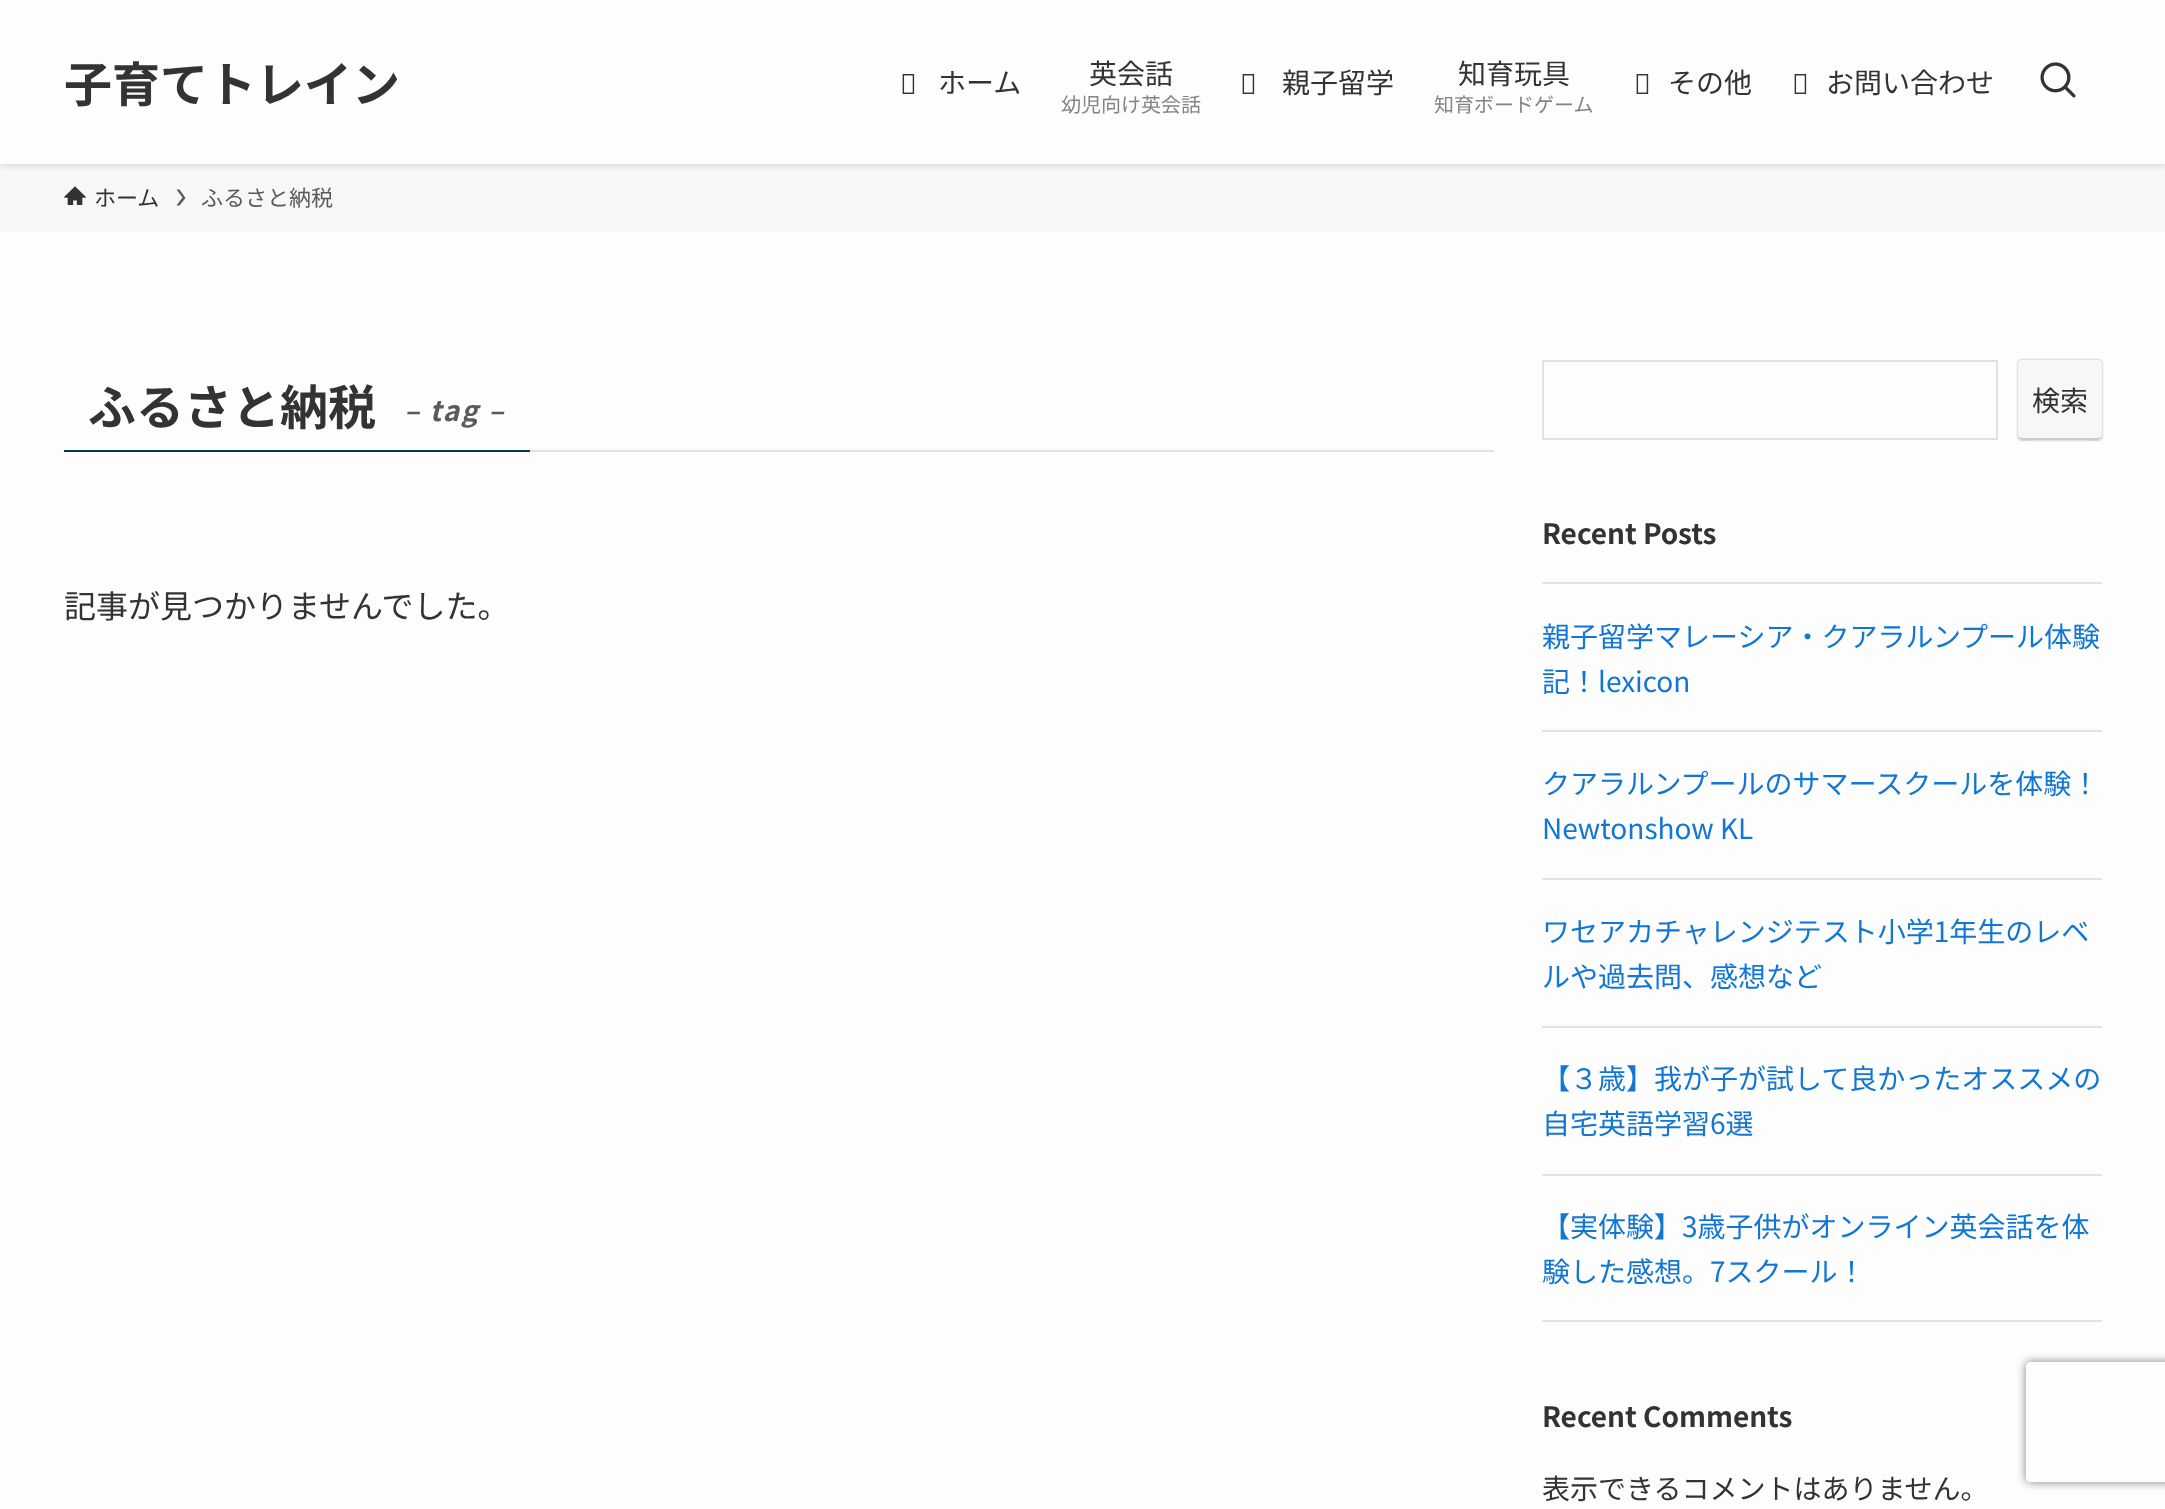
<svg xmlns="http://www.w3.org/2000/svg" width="2165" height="1509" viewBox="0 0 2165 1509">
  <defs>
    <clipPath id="clip1"><path d="M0 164h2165v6H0z"/></clipPath>
    <clipPath id="clip2"><path d="M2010 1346H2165V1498H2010ZM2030 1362H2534C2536 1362 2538 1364 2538 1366V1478C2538 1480 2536 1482 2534 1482H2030C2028 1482 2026 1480 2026 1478V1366C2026 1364 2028 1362 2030 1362Z" clip-rule="evenodd"/></clipPath>
  </defs>
  <rect width="100%" height="100%" fill="#fdfdfd"/>
  <path d="M0 164h2165v68H0z" fill="#f7f7f7"/>
  <g clip-path="url(#clip1)">
    <path d="M0 2h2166v164H0z" fill="#0000001f" filter="blur(4px)"/>
  </g>
  <image x="902" y="74" width="13" height="20" href="img/1.png"/>
  <image x="1242" y="74" width="13" height="20" href="img/1.png"/>
  <image x="1636" y="74" width="13" height="20" href="img/1.png"/>
  <image x="1794" y="74" width="13" height="20" href="img/1.png"/>
  <image x="2040" y="62" width="36" height="36" href="img/2.png"/>
  <image x="64" y="186" width="22" height="19" href="img/3.png"/>
  <path d="M179.5 189.5H176.5L182.5 197.5L176.5 205.5H179.5L185.5 198Z" fill="#5a5a5a"/>
  <path d="M530 450h964v2H530z" fill="#e2e2e2"/>
  <path d="M64 450h466v2H64z" fill="#04384c"/>
  <path d="M1543 361h454v78H1543z" fill="none" stroke="#e2e2e2" stroke-width="2"/>
  <rect x="2018" y="360" width="84" height="80" rx="4" fill="#aaa" filter="blur(1px)"/>
  <rect x="2018" y="360" width="84" height="80" rx="4" fill="#f7f7f7"/>
  <path d="M2018 434C2018 443 2027 440 2035 440H2085C2093 440 2102 443 2102 434C2102 436 2100 438 2098 438H2022C2020 438 2018 436 2018 434Z" fill="#ccc"/>
  <path d="M1542 582h560v2H1542z" fill="#e2e2e2"/>
  <path d="M1542 730h560v2H1542z" fill="#e2e2e2"/>
  <path d="M1542 878h560v2H1542z" fill="#e2e2e2"/>
  <path d="M1542 1026h560v2H1542z" fill="#e2e2e2"/>
  <path d="M1542 1174h560v2H1542z" fill="#e2e2e2"/>
  <path d="M1542 1320h560v2H1542z" fill="#e2e2e2"/>
  <g clip-path="url(#clip2)">
    <rect x="2026" y="1362" width="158" height="120" rx="4" fill="#808080" filter="blur(5px)"/>
  </g>
  <text x="64" y="102" font-family="Noto Sans JP" font-size="48" font-weight="bold" fill="#333">子育てトレイン</text>
  <g font-family="Noto Sans JP" font-size="28" fill="#333">
    <text x="938" y="93">ホーム</text>
    <text x="1089" y="84">英会話</text>
  </g>
  <text x="1061" y="112" font-family="Noto Sans JP" font-size="20" fill="#848484">幼児向け英会話</text>
  <g font-family="Noto Sans JP" font-size="28" fill="#333">
    <text x="1282" y="93">親子留学</text>
    <text x="1458" y="84">知育玩具</text>
  </g>
  <text x="1434" y="112" font-family="Noto Sans JP" font-size="20" fill="#848484">知育ボードゲーム</text>
  <g font-family="Noto Sans JP" font-size="28" fill="#333">
    <text x="1668" y="93">その他</text>
    <text x="1826" y="93">お問い合わせ</text>
  </g>
  <text x="94" y="206" font-family="Noto Sans JP" font-size="22" fill="#333">ホーム</text>
  <text x="201" y="206" font-family="Noto Sans JP" font-size="22" fill="#5a5a5a">ふるさと納税</text>
  <text x="88" y="425" font-family="Noto Sans JP" font-size="48" font-weight="bold" fill="#333">ふるさと納税</text>
  <text x="404" y="421" font-family="Noto Sans JP" font-size="28" font-weight="bold" font-style="italic" letter-spacing="2" fill="#5a5a5a">– tag –</text>
  <text x="64" y="618" font-family="Noto Sans JP" font-size="32" fill="#333">記事が見つかりませんでした。</text>
  <text x="2032" y="411" font-family="Noto Sans JP" font-size="28" fill="#333">検索</text>
  <text x="1542" y="544" font-family="Noto Sans JP" font-size="28" font-weight="bold" fill="#333">Recent Posts</text>
  <g font-family="Noto Sans JP" font-size="28" fill="#1176d4">
    <text x="1542" y="647">親子留学マレーシア・クアラルンプール体験</text>
    <text x="1542" y="692">記！lexicon</text>
    <text x="1542" y="794">クアラルンプールのサマースクールを体験！</text>
    <text x="1542" y="839">Newtonshow KL</text>
    <text x="1542" y="942">ワセアカチャレンジテスト小学1年生のレベ</text>
    <text x="1542" y="987">ルや過去問、感想など</text>
    <text x="1542" y="1089">【３歳】我が子が試して良かったオススメの</text>
    <text x="1542" y="1134">自宅英語学習6選</text>
    <text x="1542" y="1237">【実体験】3歳子供がオンライン英会話を体</text>
    <text x="1542" y="1282">験した感想。7スクール！</text>
  </g>
  <text x="1542" y="1427" font-family="Noto Sans JP" font-size="28" font-weight="bold" fill="#333">Recent Comments</text>
  <text x="1542" y="1499" font-family="Noto Sans JP" font-size="28" fill="#333">表示できるコメントはありません。</text>
</svg>
